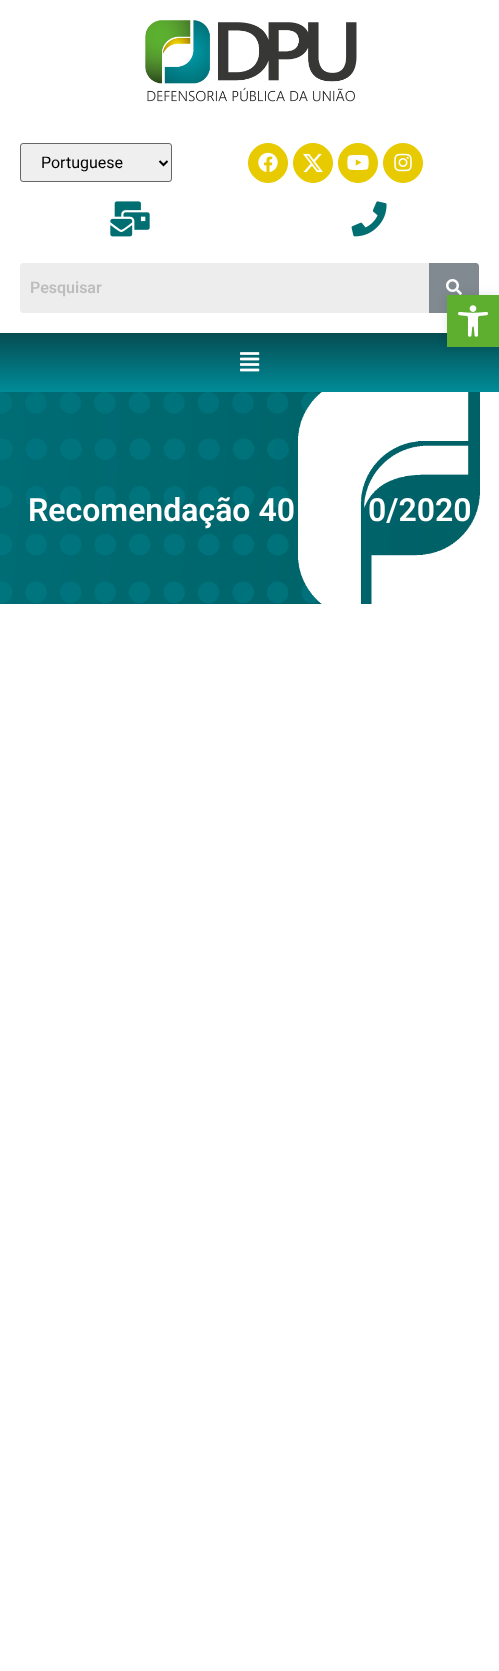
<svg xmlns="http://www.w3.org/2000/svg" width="499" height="1671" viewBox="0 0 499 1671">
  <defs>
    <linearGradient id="g1" gradientUnits="userSpaceOnUse" x1="250" y1="392" x2="250" y2="333"><stop offset="0" stop-color="#008c98"/><stop offset="1" stop-color="#064c52"/></linearGradient>
  </defs>
  <rect width="100%" height="100%" fill="#fff"/>
  <image x="145" y="20" width="212" height="82" href="img/1.png"/>
  <rect x="20.5" y="143.5" width="151" height="38" rx="2.5" fill="#efefef" stroke="#666"/>
  <path d="M159.5 161L163.5 165L167.5 161" fill="none" stroke="#000" stroke-width="2"/>
  <circle cx="268" cy="163" r="19.5" fill="#e8ca00" stroke="#e8ca00"/>
  <image x="258" y="152" width="20" height="20" href="img/2.png"/>
  <circle cx="313" cy="163" r="19.5" fill="#e8ca00" stroke="#e8ca00"/>
  <image x="303" y="153" width="20" height="20" href="img/3.png"/>
  <circle cx="358" cy="163" r="19.5" fill="#e8ca00" stroke="#e8ca00"/>
  <image x="347" y="155" width="22" height="15" href="img/4.png"/>
  <circle cx="403" cy="163" r="19.5" fill="#e8ca00" stroke="#e8ca00"/>
  <image x="394" y="153" width="18" height="19" href="img/5.png"/>
  <image x="110" y="201" width="40" height="36" href="img/6.png"/>
  <image x="351" y="201" width="36" height="36" href="img/7.png"/>
  <path d="M23 263H429V313H23C21.5 313 20 311.5 20 310V266C20 264.5 21.5 263 23 263Z" fill="#ededed"/>
  <path d="M429 263H476C477.5 263 479 264.5 479 266V310C479 311.5 477.5 313 476 313H429Z" fill="#818a91"/>
  <image x="446" y="279" width="16" height="16" href="img/8.png"/>
  <path d="M0 333h499v59H0z" fill="url(#g1)"/>
  <image x="240" y="352" width="20" height="20" href="img/9.png"/>
  <image x="0" y="392" width="499" height="212" href="img/10.png"/>
  <path d="M447 295h52v52H447z" fill="#0000001a" filter="blur(5px)"/>
  <path d="M447 295h52v52H447z" fill="#5eaf30"/>
  <image x="458" y="305" width="30" height="32" href="img/11.png"/>
  <text x="41" y="168" font-family="Roboto" font-size="16" fill="#000">Portuguese</text>
  <text x="30" y="293" font-family="Roboto" font-size="16" font-weight="600" fill="#bdbdbd">Pesquisar</text>
  <g font-family="Roboto" font-size="32" font-weight="600" fill="#fff">
    <text x="28" y="521">Recomendação 40</text>
    <text x="368" y="521">0/2020</text>
  </g>
</svg>
